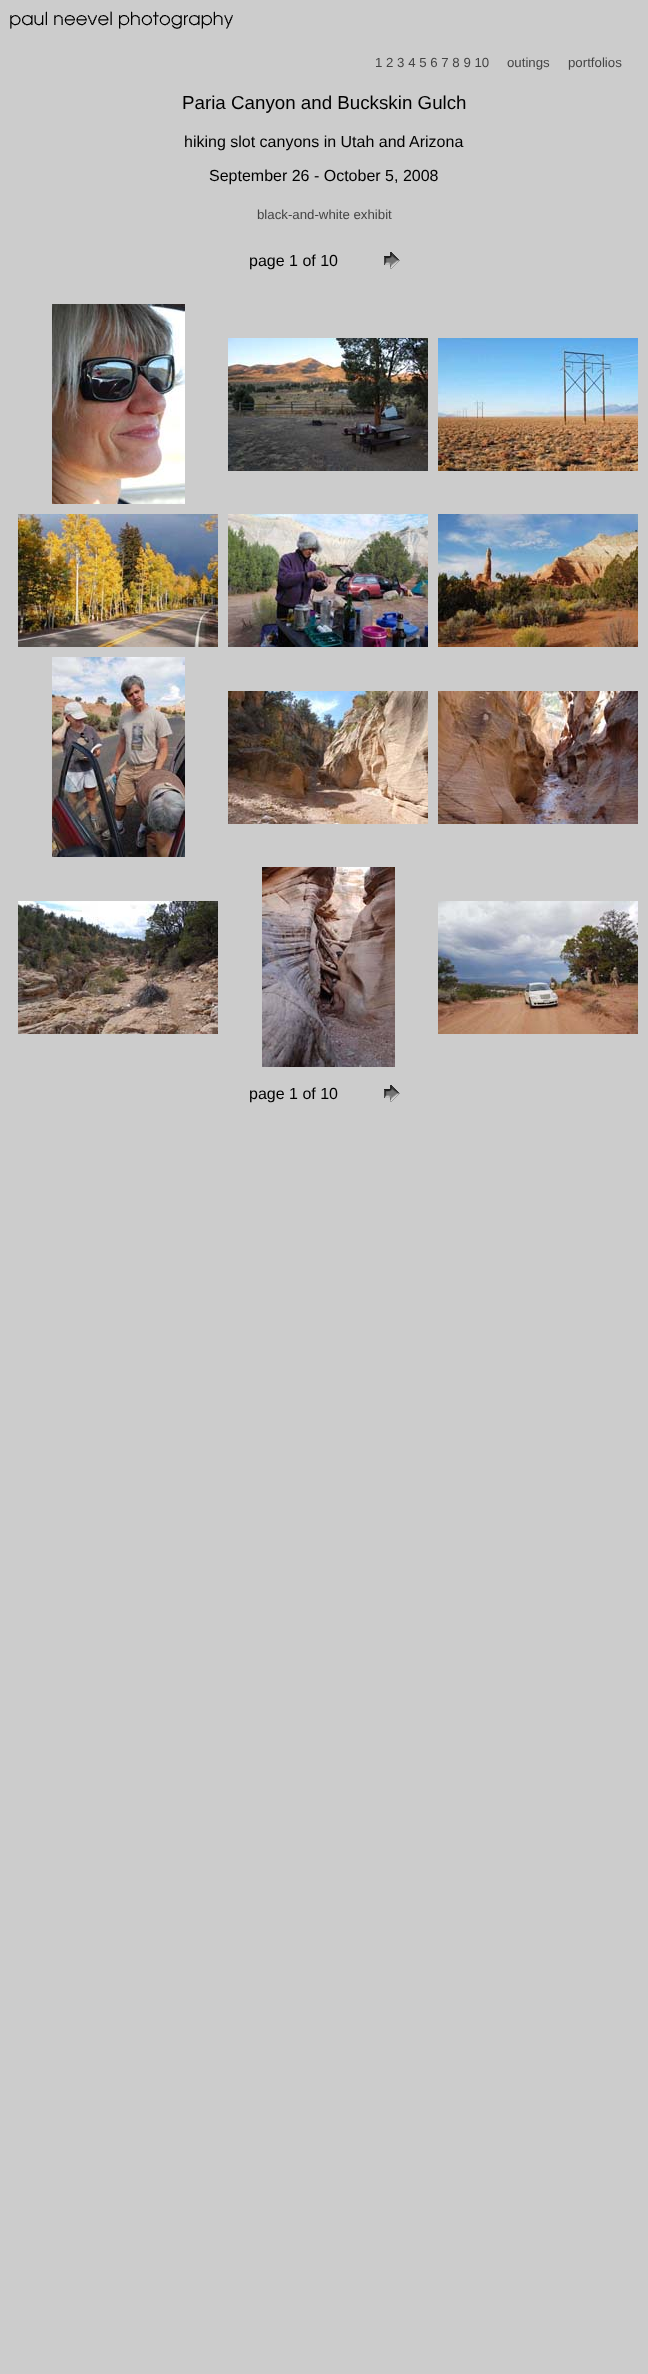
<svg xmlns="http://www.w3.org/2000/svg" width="648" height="2374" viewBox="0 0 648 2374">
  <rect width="100%" height="100%" fill="#ccc"/>
  <image x="10" y="11" width="223" height="18" href="img/1.png"/>
  <image x="384" y="252" width="16" height="17" href="img/2.png"/>
  <image x="52" y="304" width="133" height="200" href="img/3.png"/>
  <image x="228" y="338" width="200" height="133" href="img/4.png"/>
  <image x="438" y="338" width="200" height="133" href="img/5.png"/>
  <image x="18" y="514" width="200" height="133" href="img/6.png"/>
  <image x="228" y="514" width="200" height="133" href="img/7.png"/>
  <image x="438" y="514" width="200" height="133" href="img/8.png"/>
  <image x="52" y="657" width="133" height="200" href="img/9.png"/>
  <image x="228" y="691" width="200" height="133" href="img/10.png"/>
  <image x="438" y="691" width="200" height="133" href="img/11.png"/>
  <image x="18" y="901" width="200" height="133" href="img/12.png"/>
  <image x="262" y="867" width="133" height="200" href="img/13.png"/>
  <image x="438" y="901" width="200" height="133" href="img/14.png"/>
  <image x="384" y="1085" width="16" height="17" href="img/2.png"/>
  <g font-family="Liberation Sans" font-size="13.25" fill="#444">
    <text x="375" y="67">1 2 3 4 5 6 7 8 9 10</text>
    <text x="507" y="67">outings</text>
    <text x="568" y="67">portfolios</text>
  </g>
  <text x="182" y="109" font-family="Liberation Sans" font-size="18.75" fill="#000">Paria Canyon and Buckskin Gulch</text>
  <g font-family="Liberation Sans" font-size="16" fill="#000">
    <text x="184" y="147">hiking slot canyons in Utah and Arizona</text>
    <text x="209" y="181">September 26 - October 5, 2008</text>
  </g>
  <text x="257" y="219" font-family="Liberation Sans" font-size="13.25" fill="#444">black-and-white exhibit</text>
  <g font-family="Liberation Sans" font-size="16" fill="#000">
    <text x="249" y="266">page 1 of 10</text>
    <text x="249" y="1099">page 1 of 10</text>
  </g>
</svg>
